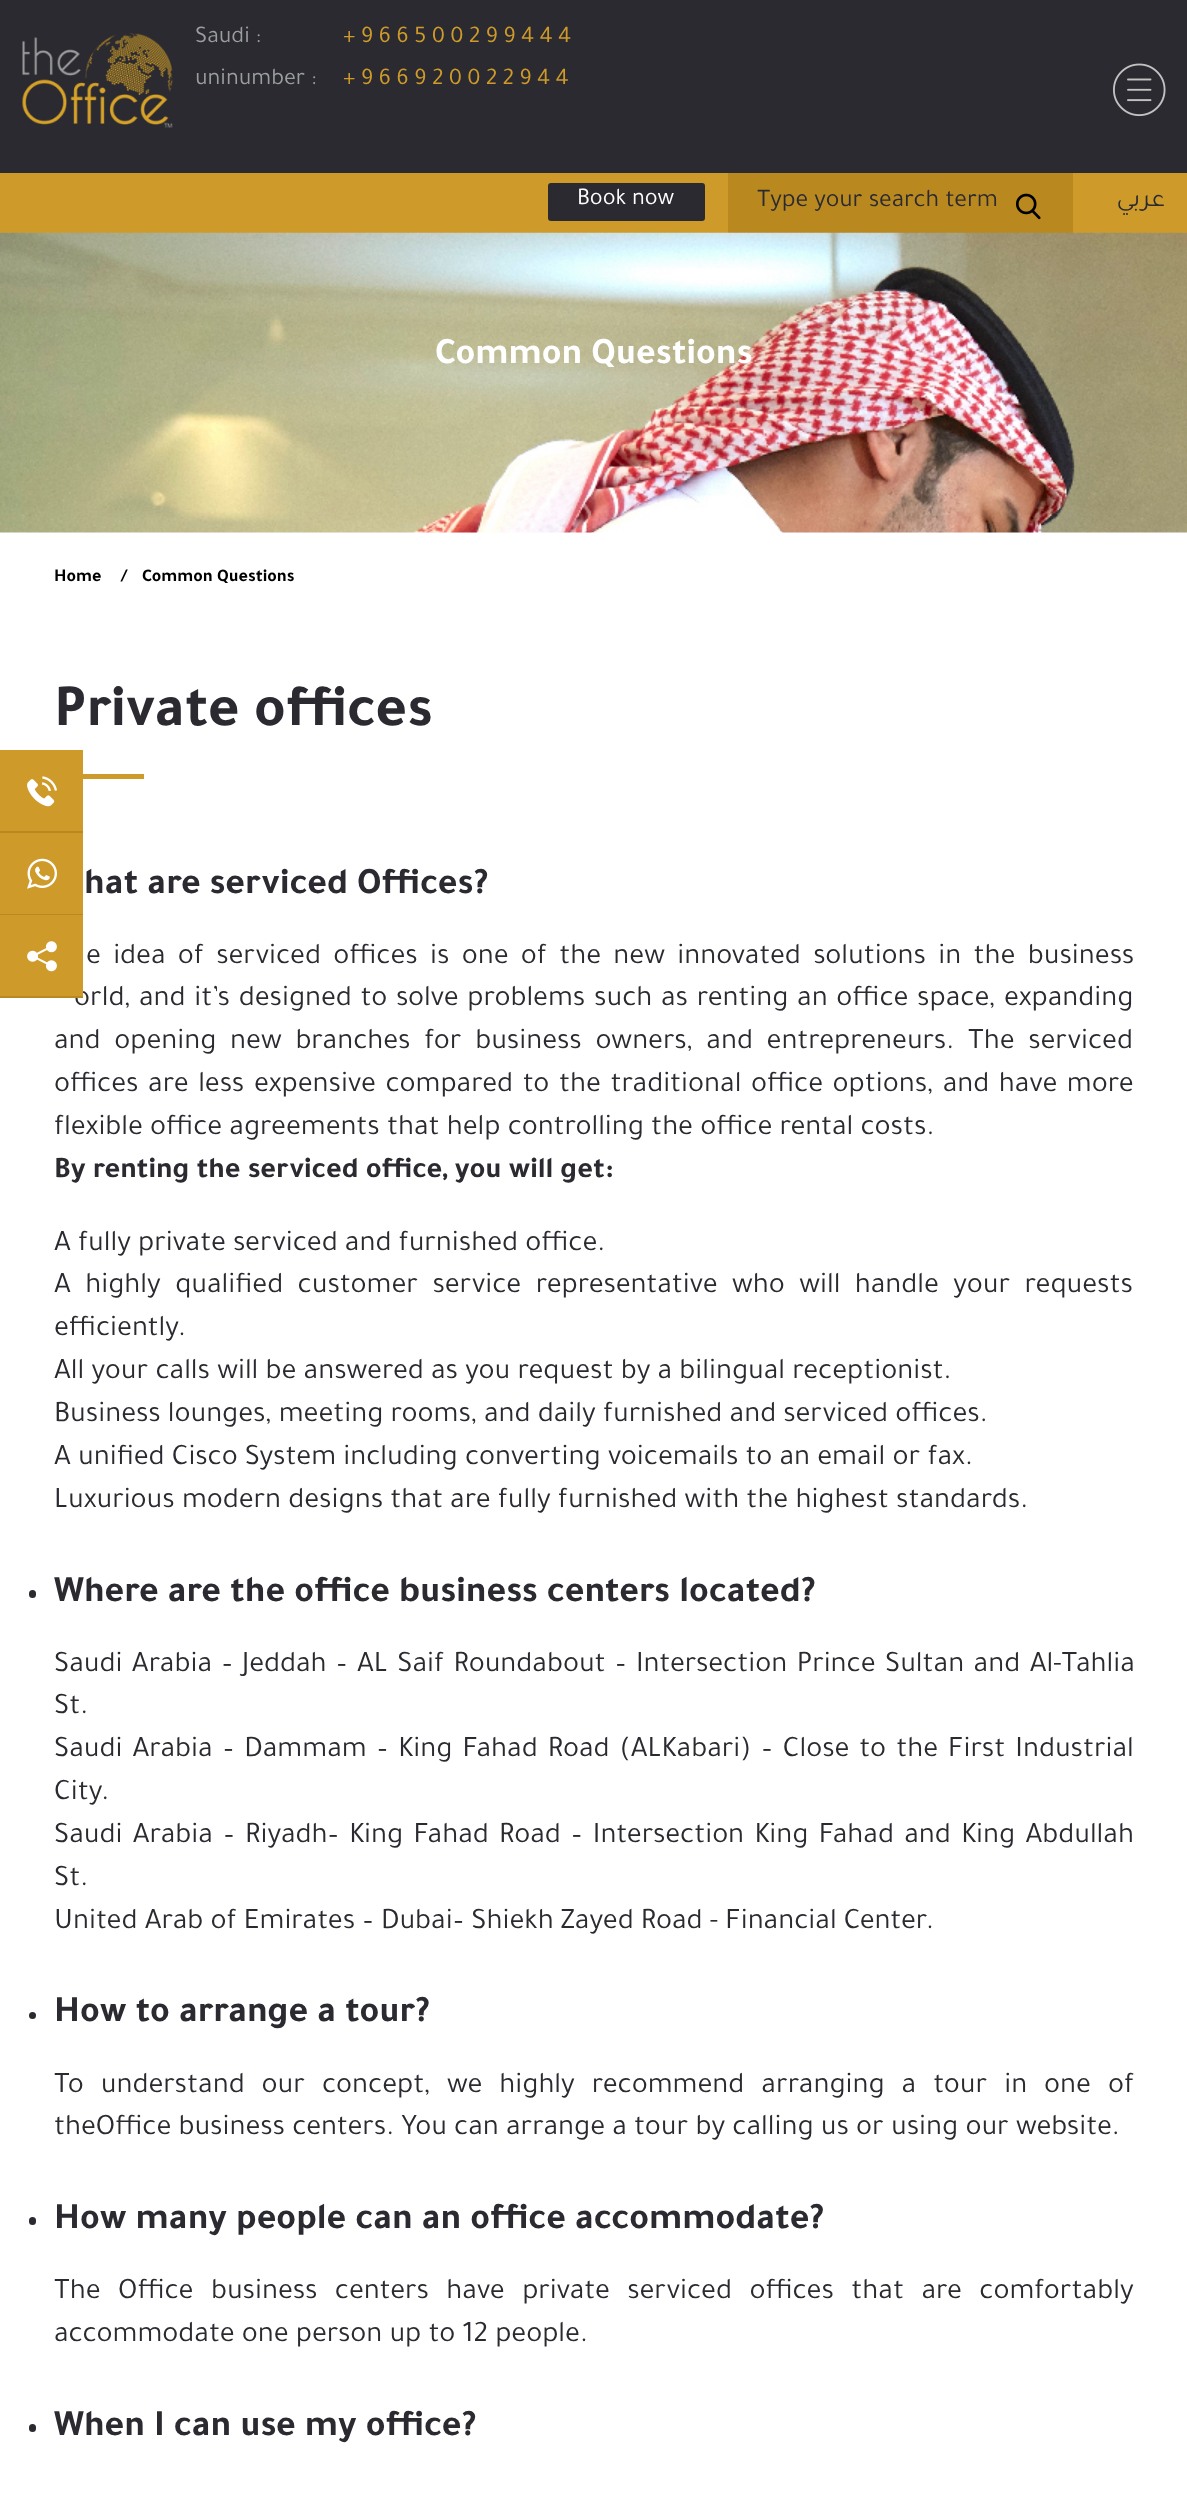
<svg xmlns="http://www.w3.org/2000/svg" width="1187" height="2499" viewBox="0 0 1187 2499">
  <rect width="100%" height="100%" fill="#fff"/>
  <path d="M0 0h1187v173H0z" fill="#2b2a30"/>
  <image x="22" y="33" width="151" height="95" href="img/1.png"/>
  <image x="1113" y="63" width="53" height="54" href="img/2.png"/>
  <path d="M0 173h1187v60H0z" fill="#ce9b2b"/>
  <rect x="548" y="183" width="157" height="38" rx="3" fill="#2b2a30"/>
  <path d="M728 173h345v60H728z" fill="#b98920"/>
  <image x="1016" y="193" width="25" height="27" href="img/3.png"/>
  <image x="0" y="232" width="1187" height="301" href="img/4.png"/>
  <path d="M0 750h83v81H0z" fill="#ce9b2b"/>
  <path d="M0 831h83v2H0z" fill="#b98920"/>
  <image x="27" y="776" width="30" height="31" href="img/5.png"/>
  <path d="M0 833h83v81H0z" fill="#ce9b2b"/>
  <path d="M0 914h83v1H0z" fill="#b98920"/>
  <image x="27" y="858" width="30" height="31" href="img/6.png"/>
  <path d="M83 774h61v5H83z" fill="#ce9b2b"/>
  <rect x="29" y="1590" width="7" height="8" rx="3.5" fill="#2b2a30"/>
  <circle cx="32.5" cy="2015.5" r="3.5" fill="#2b2a30"/>
  <rect x="29" y="2217" width="7" height="8" rx="3.5" fill="#2b2a30"/>
  <rect x="29" y="2424" width="7" height="8" rx="3.5" fill="#2b2a30"/>
  <text x="195" y="42" font-family="Tajawal" font-size="24" fill="#9b9e9f">Saudi :</text>
  <text x="343" y="42" font-family="Tajawal" font-size="24" letter-spacing="5.25" fill="#ce9b2b">+966500299444</text>
  <text x="195" y="84" font-family="Tajawal" font-size="24" fill="#9b9e9f">uninumber :</text>
  <text x="343" y="84" font-family="Tajawal" font-size="24" letter-spacing="5.25" fill="#ce9b2b">+966920022944</text>
  <text x="577" y="204" font-family="Tajawal" font-size="24" fill="#fff">Book now</text>
  <text x="757" y="206" font-family="Tajawal" font-size="25.5" fill="#2b2a30">Type your search term</text>
  <text x="1165" y="206" font-family="Tajawal" font-size="25.5" direction="rtl" fill="#2b2a30">عربي</text>
  <text x="435" y="363" font-family="Tajawal" font-size="37.5" font-weight="bold" fill="#fff">Common Questions</text>
  <g font-family="Tajawal" font-size="18" font-weight="bold" fill="#000">
    <text x="54" y="581">Home</text>
    <text x="121" y="581">/</text>
    <text x="142" y="581">Common Questions</text>
  </g>
  <text x="54" y="725" font-family="Tajawal" font-size="60" font-weight="bold" fill="#2b2a30">Private offices</text>
  <text x="84" y="893" font-family="Tajawal" font-size="37.5" font-weight="bold" fill="#2b2a30">hat are serviced Offices?</text>
  <g font-family="Tajawal" font-size="30" fill="#2b2a30">
    <text x="86" y="963" word-spacing="5.1">e idea of serviced offices is one of the new innovated solutions in the business</text>
    <text x="74" y="1005" word-spacing="1.5">orld, and it’s designed to solve problems such as renting an office space, expanding</text>
  </g>
  <path d="M0 915h83v81H0z" fill="#ce9b2b"/>
  <image x="27" y="941" width="30" height="31" href="img/7.png"/>
  <path d="M0 996h83v2H0z" fill="#b98920"/>
  <g font-family="Tajawal" font-size="30" fill="#2b2a30">
    <text x="54" y="1048" word-spacing="6.5">and opening new branches for business owners, and entrepreneurs. The serviced</text>
    <text x="54" y="1091" word-spacing="2.4">offices are less expensive compared to the traditional office options, and have more</text>
    <text x="54" y="1134">flexible office agreements that help controlling the office rental costs.</text>
  </g>
  <text x="54" y="1177" font-family="Tajawal" font-size="30" font-weight="bold" fill="#2b2a30">By renting the serviced office, you will get:</text>
  <g font-family="Tajawal" font-size="30" fill="#2b2a30">
    <text x="54" y="1250">A fully private serviced and furnished office.</text>
    <text x="54" y="1292" word-spacing="7.25">A highly qualified customer service representative who will handle your requests</text>
    <text x="54" y="1335">efficiently.</text>
    <text x="54" y="1378">All your calls will be answered as you request by a bilingual receptionist.</text>
    <text x="54" y="1421">Business lounges, meeting rooms, and daily furnished and serviced offices.</text>
    <text x="54" y="1464">A unified Cisco System including converting voicemails to an email or fax.</text>
    <text x="54" y="1507">Luxurious modern designs that are fully furnished with the highest standards.</text>
  </g>
  <text x="54" y="1601" font-family="Tajawal" font-size="37.5" font-weight="bold" fill="#2b2a30">Where are the office business centers located?</text>
  <g font-family="Tajawal" font-size="30" fill="#2b2a30">
    <text x="54" y="1671" word-spacing="2.25">Saudi Arabia – Jeddah – AL Saif Roundabout – Intersection Prince Sultan and Al-Tahlia</text>
    <text x="54" y="1713">St.</text>
    <text x="54" y="1756" word-spacing="2.9">Saudi Arabia – Dammam – King Fahad Road (ALKabari) – Close to the First Industrial</text>
    <text x="54" y="1799">City.</text>
    <text x="54" y="1842" word-spacing="3.1">Saudi Arabia – Riyadh– King Fahad Road – Intersection King Fahad and King Abdullah</text>
    <text x="54" y="1885">St.</text>
    <text x="54" y="1928">United Arab of Emirates – Dubai– Shiekh Zayed Road - Financial Center.</text>
  </g>
  <text x="54" y="2021" font-family="Tajawal" font-size="37.5" font-weight="bold" fill="#2b2a30">How to arrange a tour?</text>
  <g font-family="Tajawal" font-size="30" fill="#2b2a30">
    <text x="54" y="2092" word-spacing="9.75">To understand our concept, we highly recommend arranging a tour in one of</text>
    <text x="54" y="2134">theOffice business centers. You can arrange a tour by calling us or using our website.</text>
  </g>
  <text x="54" y="2228" font-family="Tajawal" font-size="37.5" font-weight="bold" fill="#2b2a30">How many people can an office accommodate?</text>
  <g font-family="Tajawal" font-size="30" fill="#2b2a30">
    <text x="54" y="2298" word-spacing="10.25">The Office business centers have private serviced offices that are comfortably</text>
    <text x="54" y="2341">accommodate one person up to 12 people.</text>
  </g>
  <text x="54" y="2435" font-family="Tajawal" font-size="37.5" font-weight="bold" fill="#2b2a30">When I can use my office?</text>
</svg>
